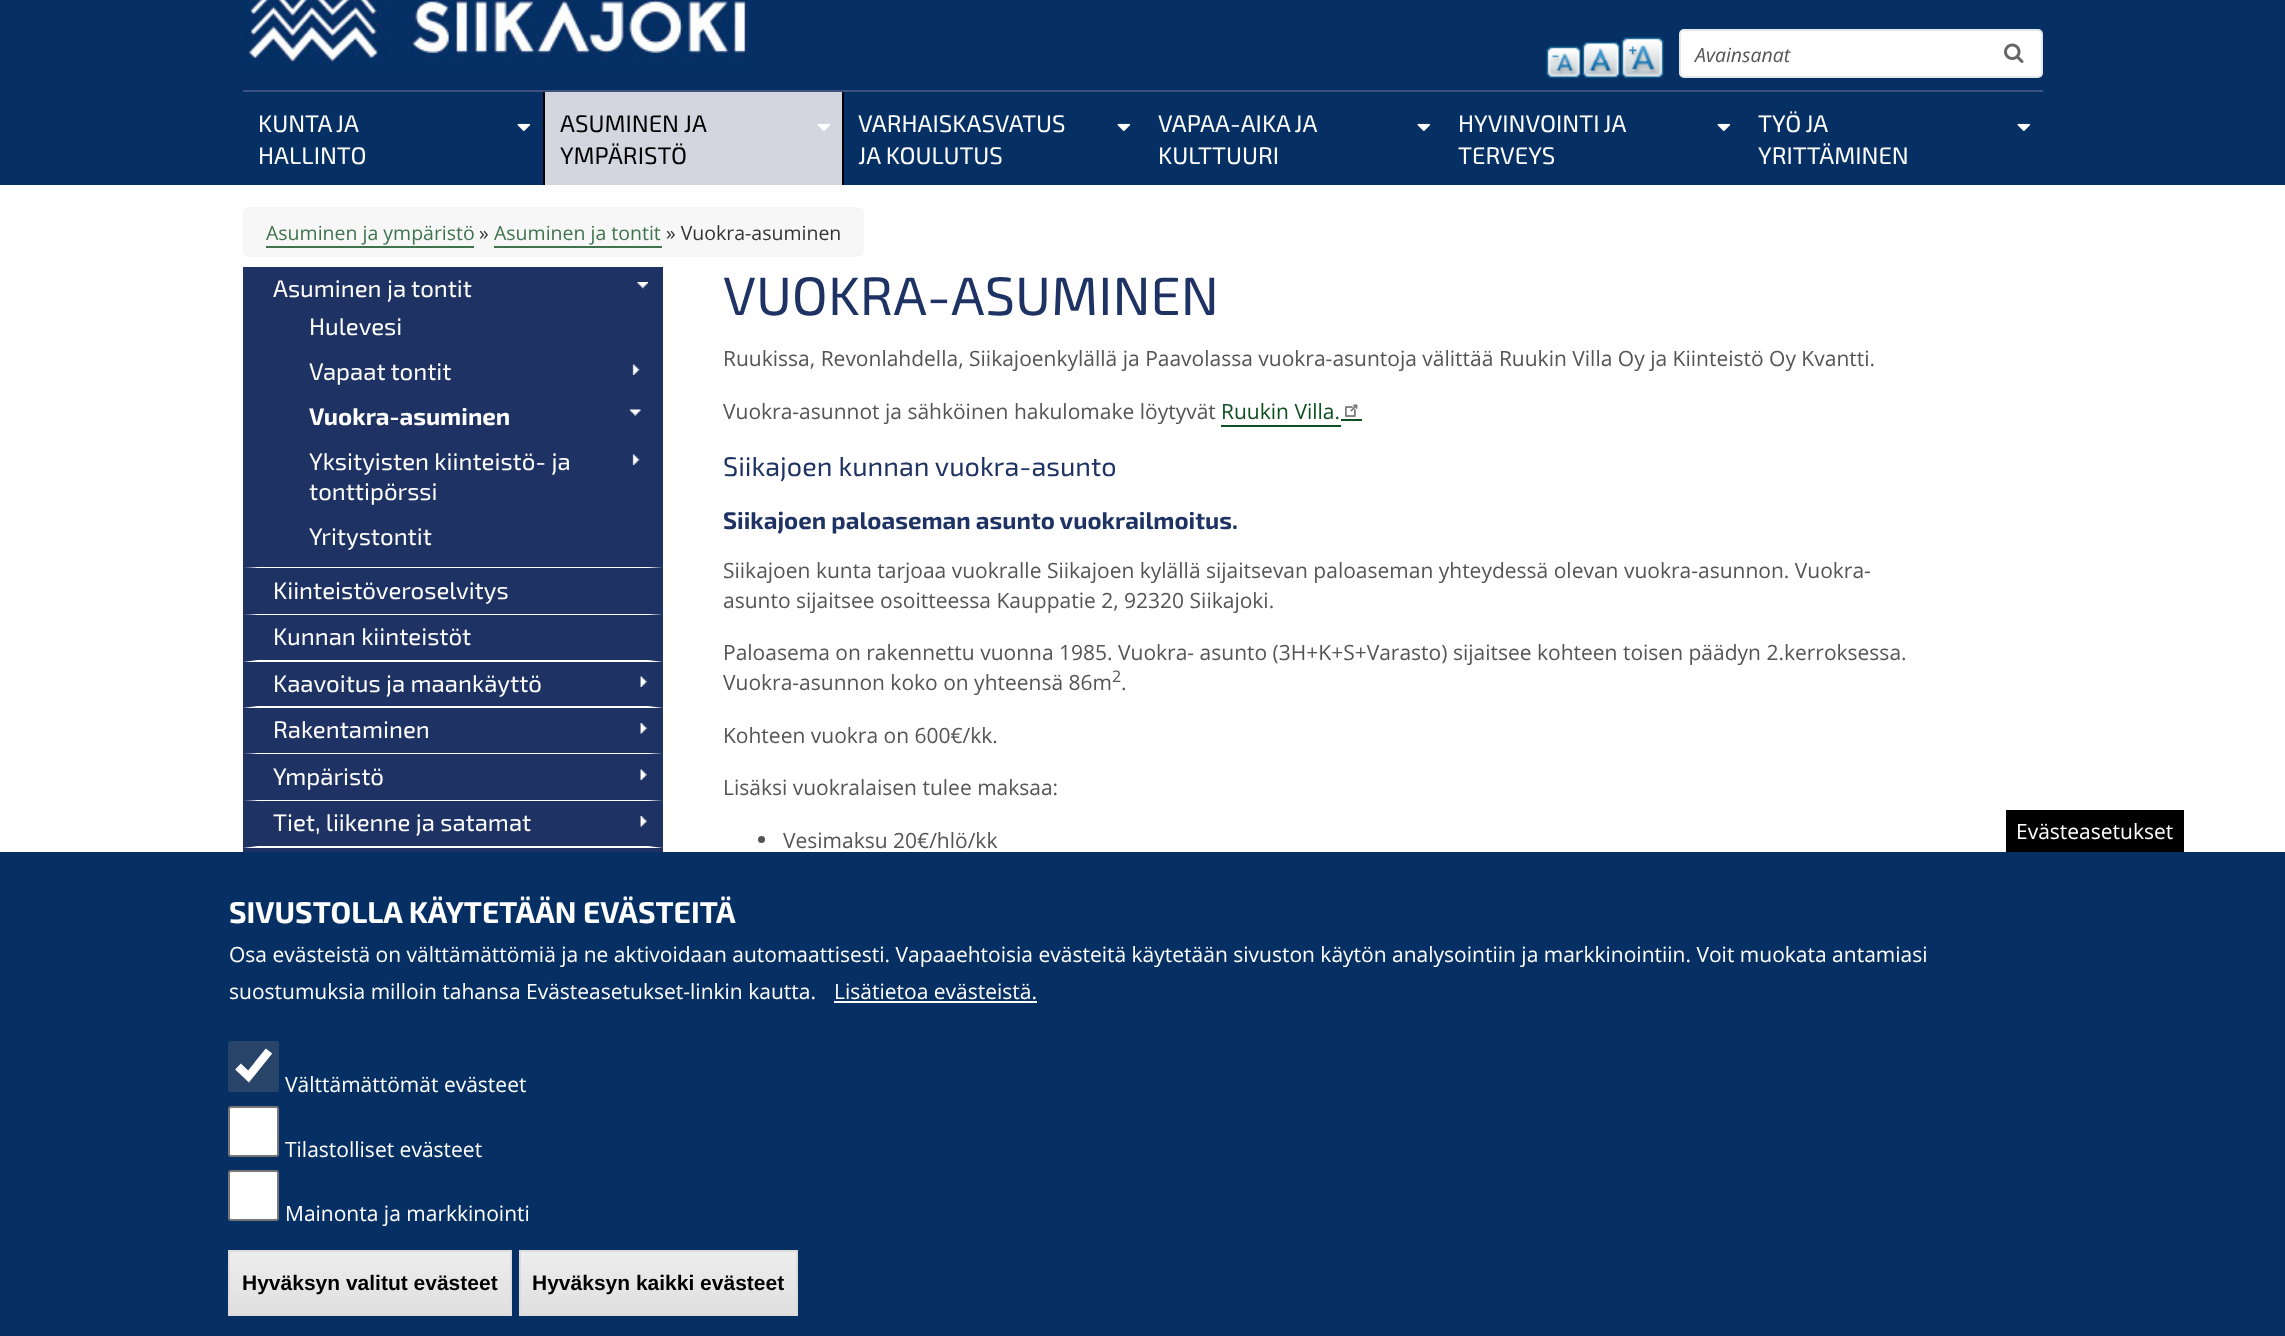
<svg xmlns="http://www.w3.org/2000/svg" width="2285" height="1336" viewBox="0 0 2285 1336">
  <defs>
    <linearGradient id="g1" gradientUnits="userSpaceOnUse" x1="370" y1="1251" x2="370" y2="1314"><stop offset="0.05" stop-color="#ededed"/><stop offset="1" stop-color="#dfdfdf"/></linearGradient>
    <linearGradient id="g2" gradientUnits="userSpaceOnUse" x1="659" y1="1251" x2="659" y2="1314"><stop offset="0.05" stop-color="#ededed"/><stop offset="1" stop-color="#dfdfdf"/></linearGradient>
  </defs>
  <rect width="100%" height="100%" fill="#fff"/>
  <path d="M0 0h2285v185H0z" fill="#063064"/>
  <image x="243" y="0" width="510" height="68" href="img/1.png"/>
  <image x="1546" y="46" width="35" height="32" href="img/2.png"/>
  <image x="1582" y="42" width="38" height="36" href="img/3.png"/>
  <image x="1621" y="37" width="43" height="41" href="img/4.png"/>
  <rect x="1680" y="30" width="362" height="47" rx="4" fill="#fff" stroke="#e7e8e9" stroke-width="2"/>
  <image x="2004" y="43" width="20" height="20" href="img/5.png"/>
  <path d="M243 90h1800v2H243z" fill="#3c517d"/>
  <image x="517" y="123" width="14" height="8" href="img/6.png"/>
  <path d="M545 92h297v93H545z" fill="#d3d6de"/>
  <path d="M842 92h2v93H842z" fill="#000"/>
  <path d="M543 92h2v93H543z" fill="#000"/>
  <image x="817" y="124" width="13" height="7" href="img/7.png"/>
  <image x="1117" y="123" width="14" height="8" href="img/6.png"/>
  <image x="1417" y="123" width="14" height="8" href="img/6.png"/>
  <image x="1717" y="123" width="14" height="8" href="img/6.png"/>
  <image x="2017" y="123" width="14" height="8" href="img/6.png"/>
  <rect x="243" y="207" width="621" height="50" rx="6" fill="#f7f7f7"/>
  <path d="M266 246h208v2H266z" fill="#3f734e"/>
  <path d="M494 246h168v2H494z" fill="#3f734e"/>
  <path d="M243 267h420v585H243z" fill="#1e3363"/>
  <image x="637" y="282" width="11" height="7" href="img/8.png"/>
  <path d="M663 568H243L258 567H648Z" fill="#fff"/>
  <image x="632" y="364" width="8" height="11" href="img/9.png"/>
  <image x="630" y="409" width="11" height="7" href="img/10.png"/>
  <image x="632" y="454" width="8" height="11" href="img/9.png"/>
  <path d="M663 615H243L258 614H648Z" fill="#fff"/>
  <path d="M663 662H243L258 660H648Z" fill="#fff"/>
  <image x="640" y="676" width="7" height="11" href="img/11.png"/>
  <path d="M663 708H243L258 706H648Z" fill="#fff"/>
  <image x="640" y="723" width="7" height="11" href="img/12.png"/>
  <path d="M663 754H243L258 753H648Z" fill="#fff"/>
  <image x="640" y="769" width="7" height="11" href="img/11.png"/>
  <path d="M663 801H243L258 800H648Z" fill="#fff"/>
  <image x="640" y="816" width="7" height="11" href="img/12.png"/>
  <path d="M663 848H243L258 846H648Z" fill="#fff"/>
  <path d="M1221 425h120v2H1221z" fill="#0f5022"/>
  <path d="M1341 419h21v2H1341z" fill="#0f5022"/>
  <image x="1345" y="404" width="13" height="13" href="img/13.png"/>
  <circle cx="761.5" cy="839.5" r="3.5" fill="#555"/>
  <path d="M0 852h2285v484H0z" fill="#063064"/>
  <path d="M2006 810h178v42H2006z" fill="#000"/>
  <path d="M834 1001h203v2H834z" fill="#fff"/>
  <rect x="228" y="1041" width="51" height="51" rx="3" fill="#284569"/>
  <path d="M238 1066.5L248.5 1076.5L269 1051" fill="none" stroke="#fff" stroke-width="8.2"/>
  <rect x="229" y="1107" width="49" height="49" rx="2" fill="#fff" stroke="#767676" stroke-width="2"/>
  <rect x="229" y="1171" width="49" height="49" rx="2" fill="#fff" stroke="#767676" stroke-width="2"/>
  <path d="M230 1252h280v62H230z" fill="url(#g1)"/>
  <path d="M229 1251h282v64H229z" fill="none" stroke="#dcdcdc" stroke-width="2"/>
  <path d="M521 1252h275v62H521z" fill="url(#g2)"/>
  <path d="M520 1251h277v64H520z" fill="none" stroke="#dcdcdc" stroke-width="2"/>
  <text x="1695" y="62" font-family="Open Sans" font-size="19.5" font-style="italic" fill="#555">Avainsanat</text>
  <g font-family="'Exo 2'" font-size="24" fill="#fff">
    <text x="258" y="132" word-spacing="-1">KUNTA JA</text>
    <text x="258" y="164">HALLINTO</text>
  </g>
  <g font-family="'Exo 2'" font-size="24" fill="#000">
    <text x="560" y="132">ASUMINEN JA</text>
    <text x="560" y="164">YMPÄRISTÖ</text>
  </g>
  <g font-family="'Exo 2'" font-size="24" fill="#fff">
    <text x="858" y="132">VARHAISKASVATUS</text>
    <text x="858" y="164">JA KOULUTUS</text>
    <text x="1158" y="132" word-spacing="-1">VAPAA-AIKA JA</text>
    <text x="1158" y="164">KULTTUURI</text>
    <text x="1458" y="132" word-spacing="-1">HYVINVOINTI JA</text>
    <text x="1458" y="164">TERVEYS</text>
    <text x="1758" y="132" word-spacing="-1">TYÖ JA</text>
    <text x="1758" y="164">YRITTÄMINEN</text>
  </g>
  <text x="266" y="240" font-family="Open Sans" font-size="19.5" fill="#3f734e">Asuminen ja ympäristö</text>
  <text x="479" y="240" font-family="Open Sans" font-size="19.5" fill="#333">»</text>
  <text x="494" y="240" font-family="Open Sans" font-size="19.5" fill="#3f734e">Asuminen ja tontit</text>
  <text x="666" y="240" font-family="Open Sans" font-size="19.5" fill="#333">» Vuokra-asuminen</text>
  <g font-family="'Exo 2'" font-size="24" fill="#fff">
    <text x="273" y="297">Asuminen ja tontit</text>
    <text x="309" y="335">Hulevesi</text>
    <text x="309" y="380">Vapaat tontit</text>
  </g>
  <text x="309" y="425" font-family="'Exo 2'" font-size="24" font-weight="bold" fill="#fff">Vuokra-asuminen</text>
  <g font-family="'Exo 2'" font-size="24" fill="#fff">
    <text x="309" y="470">Yksityisten kiinteistö- ja</text>
    <text x="309" y="500">tonttipörssi</text>
    <text x="309" y="545">Yritystontit</text>
    <text x="273" y="599">Kiinteistöveroselvitys</text>
    <text x="273" y="645">Kunnan kiinteistöt</text>
    <text x="273" y="692">Kaavoitus ja maankäyttö</text>
    <text x="273" y="738">Rakentaminen</text>
    <text x="273" y="785">Ympäristö</text>
    <text x="273" y="831">Tiet, liikenne ja satamat</text>
  </g>
  <text x="723" y="315" font-family="'Exo 2'" font-size="54" fill="#1e3363">VUOKRA-ASUMINEN</text>
  <g font-family="Open Sans" font-size="21" fill="#555">
    <text x="723" y="366">Ruukissa, Revonlahdella, Siikajoenkylällä ja Paavolassa vuokra-asuntoja välittää Ruukin Villa Oy ja Kiinteistö Oy Kvantti.</text>
    <text x="723" y="419">Vuokra-asunnot ja sähköinen hakulomake löytyvät</text>
  </g>
  <text x="1221" y="419" font-family="Open Sans" font-size="21" fill="#0f5022">Ruukin Villa.</text>
  <text x="723" y="476" font-family="'Exo 2'" font-size="27" fill="#1e3363">Siikajoen kunnan vuokra-asunto</text>
  <text x="723" y="529" font-family="'Exo 2'" font-size="24" font-weight="bold" fill="#1e3363">Siikajoen paloaseman asunto vuokrailmoitus.</text>
  <g font-family="Open Sans" font-size="21" fill="#555">
    <text x="723" y="578">Siikajoen kunta tarjoaa vuokralle Siikajoen kylällä sijaitsevan paloaseman yhteydessä olevan vuokra-asunnon. Vuokra-</text>
    <text x="723" y="608">asunto sijaitsee osoitteessa Kauppatie 2, 92320 Siikajoki.</text>
    <text x="723" y="660">Paloasema on rakennettu vuonna 1985. Vuokra- asunto (3H+K+S+Varasto) sijaitsee kohteen toisen päädyn 2.kerroksessa.</text>
    <text x="723" y="690">Vuokra-asunnon koko on yhteensä 86m</text>
  </g>
  <text x="1112" y="682" font-family="Open Sans" font-size="16" fill="#555">2</text>
  <g font-family="Open Sans" font-size="21" fill="#555">
    <text x="1121" y="690">.</text>
    <text x="723" y="743">Kohteen vuokra on 600€/kk.</text>
    <text x="723" y="795">Lisäksi vuokralaisen tulee maksaa:</text>
    <text x="783" y="848">Vesimaksu 20€/hlö/kk</text>
  </g>
  <text x="2016" y="839" font-family="Open Sans" font-size="21" fill="#fff">Evästeasetukset</text>
  <text x="229" y="923" font-family="'Exo 2'" font-size="30" font-weight="bold" fill="#fff">SIVUSTOLLA KÄYTETÄÄN EVÄSTEITÄ</text>
  <g font-family="Open Sans" font-size="21" fill="#fff">
    <text x="229" y="962">Osa evästeistä on välttämättömiä ja ne aktivoidaan automaattisesti. Vapaaehtoisia evästeitä käytetään sivuston käytön analysointiin ja markkinointiin. Voit muokata antamiasi</text>
    <text x="229" y="999">suostumuksia milloin tahansa Evästeasetukset-linkin kautta.</text>
    <text x="834" y="999">Lisätietoa evästeistä.</text>
    <text x="285" y="1092">Välttämättömät evästeet</text>
    <text x="285" y="1157">Tilastolliset evästeet</text>
    <text x="285" y="1221">Mainonta ja markkinointi</text>
  </g>
  <g font-family="Liberation Sans" font-size="21" font-weight="bold" fill="#000">
    <text x="242" y="1290">Hyväksyn valitut evästeet</text>
    <text x="532" y="1290">Hyväksyn kaikki evästeet</text>
  </g>
</svg>
